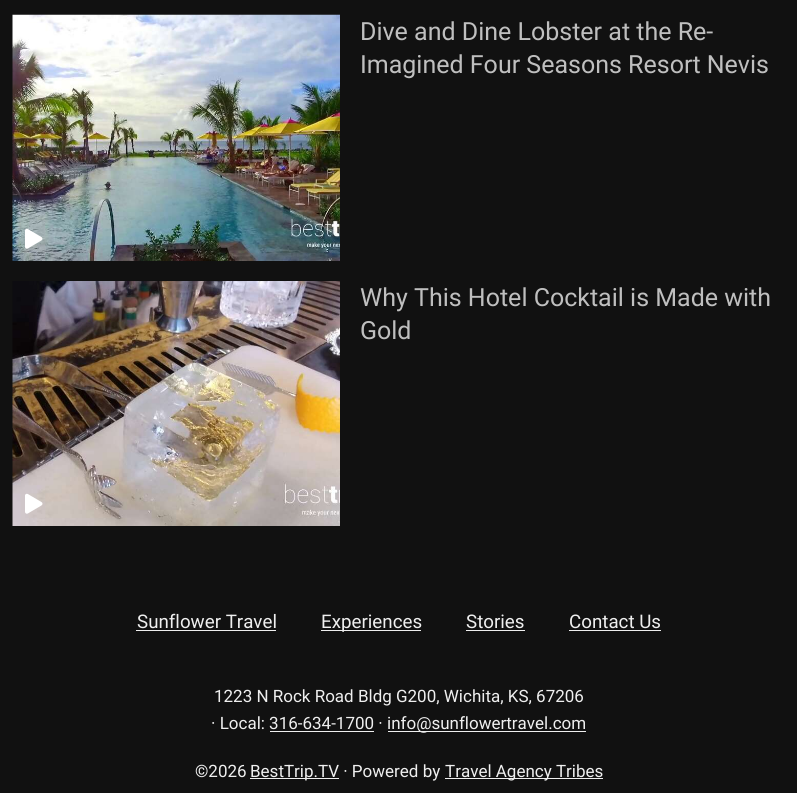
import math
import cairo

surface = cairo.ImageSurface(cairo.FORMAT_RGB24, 797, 793)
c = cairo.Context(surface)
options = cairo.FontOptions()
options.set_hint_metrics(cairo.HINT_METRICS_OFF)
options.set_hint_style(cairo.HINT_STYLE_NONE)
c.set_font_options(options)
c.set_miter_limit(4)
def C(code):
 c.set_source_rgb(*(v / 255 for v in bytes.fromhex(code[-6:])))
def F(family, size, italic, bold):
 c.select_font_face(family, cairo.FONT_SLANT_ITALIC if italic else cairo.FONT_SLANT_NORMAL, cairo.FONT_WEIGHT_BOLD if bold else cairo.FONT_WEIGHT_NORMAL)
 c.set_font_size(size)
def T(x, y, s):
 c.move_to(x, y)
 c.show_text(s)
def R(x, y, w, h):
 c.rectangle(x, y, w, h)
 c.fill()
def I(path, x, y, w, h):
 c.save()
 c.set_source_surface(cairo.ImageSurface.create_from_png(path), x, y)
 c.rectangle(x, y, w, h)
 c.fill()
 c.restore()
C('111111')
c.paint()
I('1.png',12,14,328,247)
I('2.png',25,228,18,21)
F('Roboto',25,0,0)
C('bfbfbf')
T(360,40,'Dive and Dine Lobster at the Re-')
T(360,73,'Imagined Four Seasons Resort Nevis')
I('3.png',12,281,328,245)
I('4.png',25,493,18,21)
T(360,306,'Why This Hotel Cocktail is Made with')
T(360,339,'Gold')
F('Roboto',18.75,0,0)
C('efefef')
T(137,628,'Sunflower Travel')
R(136,630,140,1)
R(321,630,100,1)
T(321,628,'Experiences')
T(466,628,'Stories')
R(466,630,59,1)
T(569,628,'Contact Us')
R(569,630,92,1)
F('Roboto',17,0,0)
T(214,702,'1223 N Rock Road Bldg G200, Wichita, KS, 67206')
T(211,729,'· Local: 316-634-1700 ·')
R(388,731,198,1)
T(387,729,'info@sunflowertravel.com')
R(270,731,104,1)
T(195,777,'©2026')
R(250,778,89,1)
T(250,777,'BestTrip.TV · Powered by')
R(445,778,158,1)
T(445,777,'Travel Agency Tribes')
surface.write_to_png('o.png')
